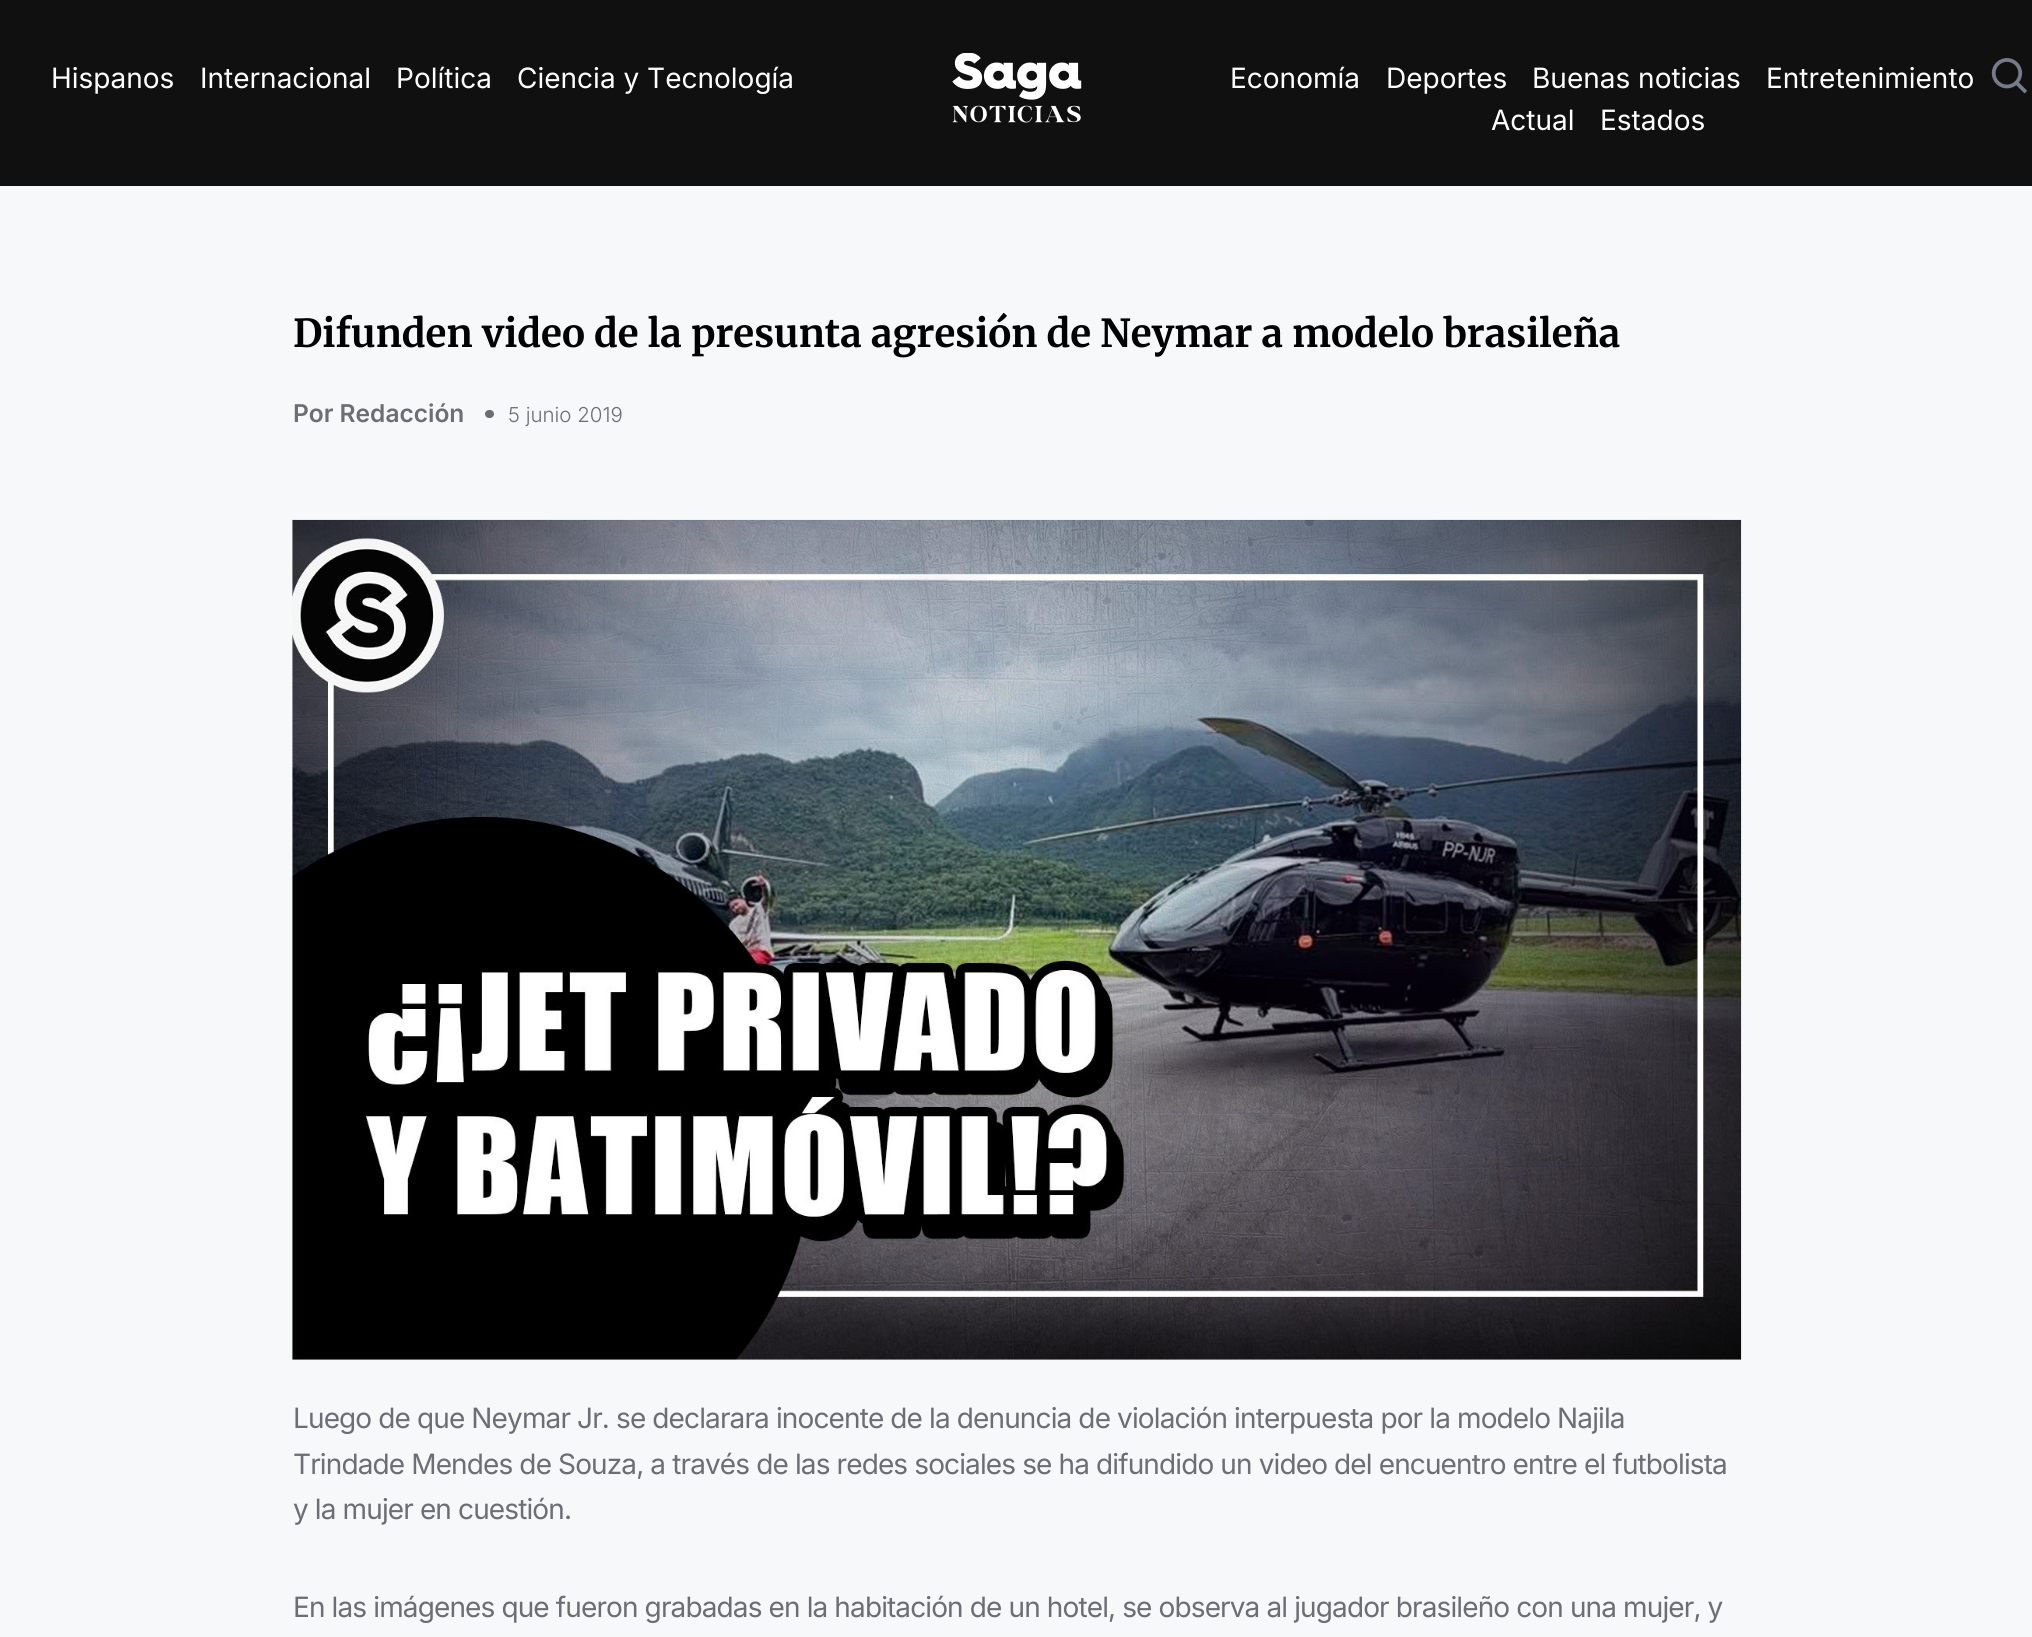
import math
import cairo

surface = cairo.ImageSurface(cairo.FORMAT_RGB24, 2032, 1637)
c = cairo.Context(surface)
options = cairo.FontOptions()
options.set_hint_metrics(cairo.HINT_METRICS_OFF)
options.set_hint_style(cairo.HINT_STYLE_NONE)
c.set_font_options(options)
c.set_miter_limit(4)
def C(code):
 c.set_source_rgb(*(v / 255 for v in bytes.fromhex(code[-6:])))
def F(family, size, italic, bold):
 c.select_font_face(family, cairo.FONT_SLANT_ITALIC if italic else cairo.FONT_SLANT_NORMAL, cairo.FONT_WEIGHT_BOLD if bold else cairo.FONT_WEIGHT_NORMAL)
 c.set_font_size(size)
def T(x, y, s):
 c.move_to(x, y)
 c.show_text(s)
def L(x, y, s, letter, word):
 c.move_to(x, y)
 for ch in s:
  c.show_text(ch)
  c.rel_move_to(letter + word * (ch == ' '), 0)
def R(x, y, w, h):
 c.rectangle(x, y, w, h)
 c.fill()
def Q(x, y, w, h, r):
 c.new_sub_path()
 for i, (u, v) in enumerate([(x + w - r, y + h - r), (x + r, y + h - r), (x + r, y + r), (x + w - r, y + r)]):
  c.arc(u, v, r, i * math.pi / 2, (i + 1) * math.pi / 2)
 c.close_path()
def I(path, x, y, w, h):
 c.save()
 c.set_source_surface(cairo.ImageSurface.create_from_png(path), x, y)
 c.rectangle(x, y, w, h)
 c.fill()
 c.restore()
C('f6f8f9')
c.paint()
C('101010')
R(0,0,2032,186)
F('Inter',28,0,0)
C('ffffff')
T(51,88,'Hispanos')
T(200,88,'Internacional')
T(396,88,'Política')
T(517,88,'Ciencia y Tecnología')
I('1.png',952,53,130,70)
T(1230,88,'Economía')
T(1386,88,'Deportes')
T(1532,88,'Buenas noticias')
T(1766,88,'Entretenimiento')
T(1491,130,'Actual')
T(1600,130,'Estados')
I('2.png',1991,58,37,36)
F('Merriweather',38.5,0,1)
C('000000')
T(293,347,'Difunden video de la presunta agresión de Neymar a modelo brasileña')
F('Inter SemiBold',24.5,0,0)
C('6c6e75')
T(293,422,'Por Redacción')
Q(485,410,9,8,4)
c.fill()
F('Inter Light',20.5,0,0)
T(508,422,'5 junio 2019')
I('3.png',292,519,1450,841)
F('Inter',28,0,0)
L(293,1428,'Luego de que Neymar Jr. se declarara inocente de la denuncia de violación interpuesta por la modelo Najila',-.88,0)
L(293,1474,'Trindade Mendes de Souza, a través de las redes sociales se ha difundido un video del encuentro entre el futbolista',-.88,0)
L(293,1519,'y la mujer en cuestión.',-.88,0)
L(293,1617,'En las imágenes que fueron grabadas en la habitación de un hotel, se observa al jugador brasileño con una mujer, y',-.88,0)
surface.write_to_png('o.png')
